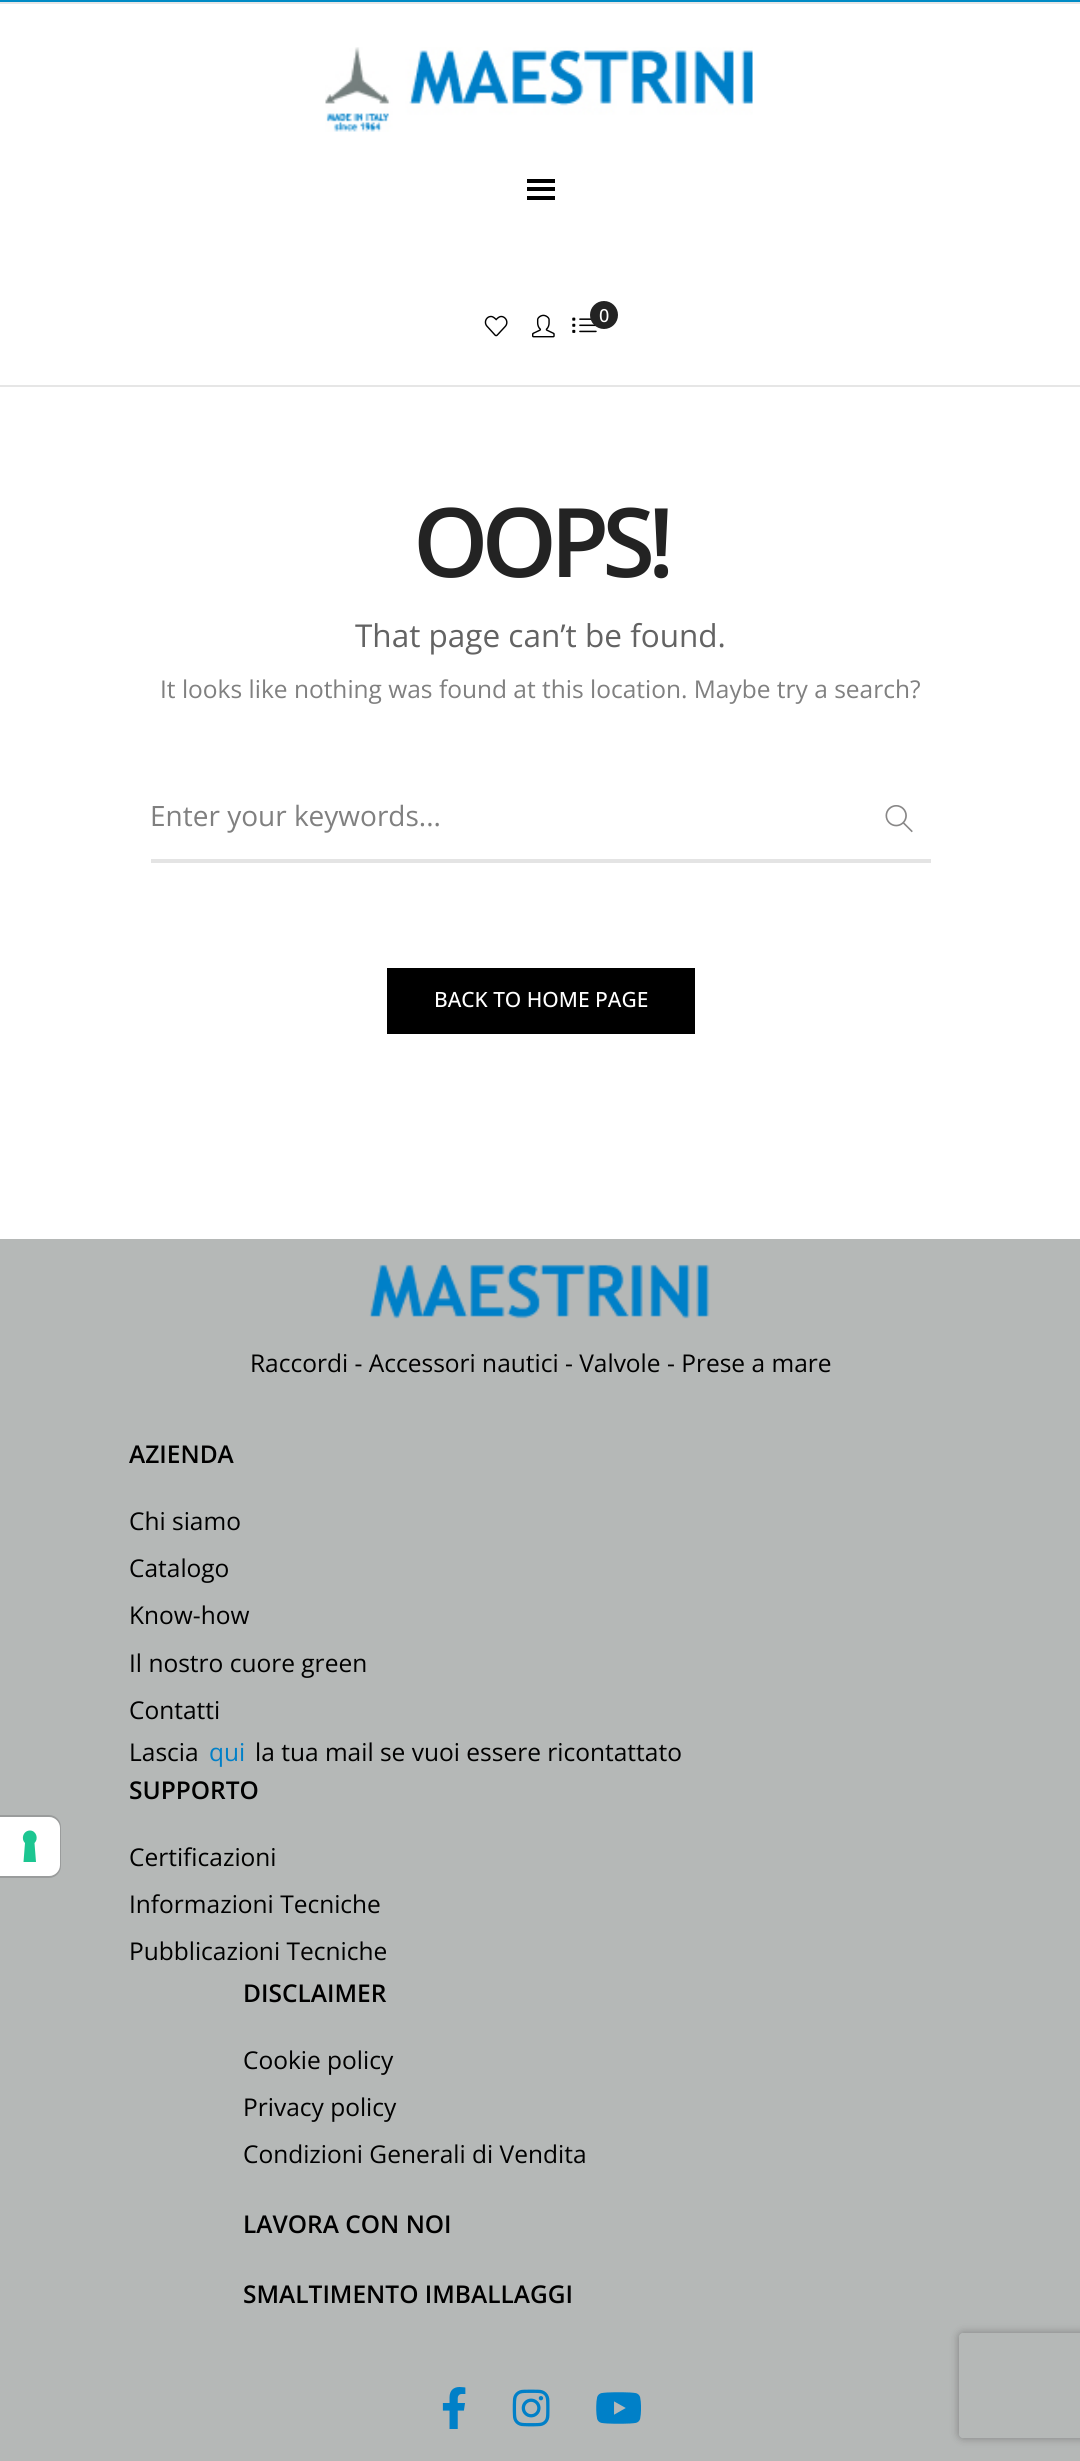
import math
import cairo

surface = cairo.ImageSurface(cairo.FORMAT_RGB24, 1080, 2461)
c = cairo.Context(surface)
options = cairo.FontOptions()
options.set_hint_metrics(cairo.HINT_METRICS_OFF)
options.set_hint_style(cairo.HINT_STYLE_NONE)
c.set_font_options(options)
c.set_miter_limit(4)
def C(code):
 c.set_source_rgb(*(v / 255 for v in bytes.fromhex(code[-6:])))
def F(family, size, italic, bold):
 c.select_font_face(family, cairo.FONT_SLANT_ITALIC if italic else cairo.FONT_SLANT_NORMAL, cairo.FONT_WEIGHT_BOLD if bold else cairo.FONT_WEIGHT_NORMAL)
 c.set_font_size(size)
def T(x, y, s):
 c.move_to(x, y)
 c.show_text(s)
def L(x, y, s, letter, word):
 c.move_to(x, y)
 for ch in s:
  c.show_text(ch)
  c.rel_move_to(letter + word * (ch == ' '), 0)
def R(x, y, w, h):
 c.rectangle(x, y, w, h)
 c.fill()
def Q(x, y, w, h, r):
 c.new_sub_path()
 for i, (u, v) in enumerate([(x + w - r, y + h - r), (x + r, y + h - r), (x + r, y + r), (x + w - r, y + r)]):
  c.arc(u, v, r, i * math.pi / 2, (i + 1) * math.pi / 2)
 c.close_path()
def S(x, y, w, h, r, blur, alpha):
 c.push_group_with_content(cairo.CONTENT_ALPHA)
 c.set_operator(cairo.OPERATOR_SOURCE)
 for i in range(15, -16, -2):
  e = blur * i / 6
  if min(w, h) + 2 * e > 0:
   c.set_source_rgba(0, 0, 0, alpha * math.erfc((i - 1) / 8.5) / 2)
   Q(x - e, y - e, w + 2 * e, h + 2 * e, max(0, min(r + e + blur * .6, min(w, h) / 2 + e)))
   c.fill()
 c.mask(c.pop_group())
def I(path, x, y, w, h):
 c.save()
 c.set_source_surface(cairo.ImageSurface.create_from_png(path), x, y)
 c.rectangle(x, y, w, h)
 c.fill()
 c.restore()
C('ffffff')
c.paint()
C('b5b8b7')
R(0,1239,1080,1222)
c.new_path()
c.move_to(-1,1816)
c.line_to(49,1816)
c.curve_to(55,1816,60,1821,60,1827)
c.line_to(60,1866)
c.curve_to(60,1872,55,1877,49,1877)
c.line_to(-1,1877)
c.close_path()
C('9a9c9c')
c.stroke()
C('ffffff')
c.new_path()
c.move_to(0,1817)
c.line_to(49,1817)
c.curve_to(55,1817,60,1822,60,1828)
c.line_to(60,1865)
c.curve_to(60,1871,55,1876,49,1876)
c.line_to(0,1876)
c.close_path()
c.fill()
C('1cc691')
c.set_fill_rule(cairo.FILL_RULE_EVEN_ODD)
c.new_path()
c.move_to(30,1830.5)
c.curve_to(36,1830.5,39,1838.5,34.5,1843)
c.line_to(36,1862)
c.line_to(23.5,1862)
c.line_to(25,1843)
c.curve_to(20.5,1838.5,23.5,1830.5,30,1830.5)
c.close_path()
c.fill()
C('e6e6e6')
R(0,2,1080,2)
C('008bc5')
R(0,0,1080,2)
C('e6e6e6')
c.set_fill_rule(cairo.FILL_RULE_WINDING)
c.new_path()
c.move_to(0,385)
c.line_to(0,387)
c.line_to(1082,387)
c.line_to(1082,4)
c.line_to(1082,385)
c.close_path()
c.fill()
I('1.png',325,47,428,85)
C('000000')
R(527,179,28,4)
R(527,187,28,4)
R(527,196,28,4)
I('2.png',484,315,24,22)
I('3.png',532,314,23,24)
I('4.png',572,317,25,16)
C('232323')
c.arc(604,315,14,0,2 * math.pi)
c.fill()
F('Open Sans Medium',18,0,0)
C('ffffff')
T(599,322,'0')
F('Open Sans SemiBold',96,0,0)
C('232323')
L(413,577,'OOPS!',-7,0)
F('Open Sans',31.5,0,0)
C('636363')
T(355,647,'That page can’t be found.')
F('Open Sans',24.5,0,0)
C('808080')
T(160,698,'It looks like nothing was found at this location. Maybe try a search?')
C('e4e4e4')
R(151,859,780,4)
F('Open Sans',28,0,0)
C('808080')
T(150,826,'Enter your keywords...')
I('5.png',885,805,28,28)
C('000000')
R(387,968,308,66)
F('Open Sans Medium',21,0,0)
C('ffffff')
T(434,1007,'BACK TO HOME PAGE')
I('6.png',369,1264,341,55)
F('Open Sans',24.5,0,0)
C('000000')
T(250,1372,'Raccordi - Accessori nautici - Valvole - Prese a mare')
F('Open Sans SemiBold',24.5,0,0)
T(129,1463,'AZIENDA')
F('Open Sans',24.5,0,0)
T(129,1530,'Chi siamo')
T(129,1577,'Catalogo')
T(129,1624,'Know-how')
T(129,1672,'Il nostro cuore green')
T(129,1719,'Contatti')
T(129,1761,'Lascia')
C('0080c8')
T(209,1761,'qui')
C('000000')
T(255,1761,'la tua mail se vuoi essere ricontattato')
F('Open Sans SemiBold',24.5,0,0)
T(129,1799,'SUPPORTO')
F('Open Sans',24.5,0,0)
T(129,1866,'Certificazioni')
T(129,1913,'Informazioni Tecniche')
T(129,1960,'Pubblicazioni Tecniche')
F('Open Sans SemiBold',24.5,0,0)
T(243,2002,'DISCLAIMER')
F('Open Sans',24.5,0,0)
T(243,2069,'Cookie policy')
T(243,2116,'Privacy policy')
T(243,2163,'Condizioni Generali di Vendita')
F('Open Sans SemiBold',24.5,0,0)
T(243,2233,'LAVORA CON NOI')
T(243,2303,'SMALTIMENTO IMBALLAGGI')
I('7.png',442,2387,24,42)
I('8.png',512,2389,38,38)
I('9.png',596,2392,45,32)
c.save()
c.set_fill_rule(cairo.FILL_RULE_EVEN_ODD)
c.new_path()
c.move_to(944,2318)
c.line_to(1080,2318)
c.line_to(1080,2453)
c.line_to(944,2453)
c.close_path()
c.move_to(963,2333)
c.line_to(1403,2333)
c.curve_to(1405,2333,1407,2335,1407,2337)
c.line_to(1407,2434)
c.curve_to(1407,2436,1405,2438,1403,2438)
c.line_to(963,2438)
c.curve_to(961,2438,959,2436,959,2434)
c.line_to(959,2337)
c.curve_to(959,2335,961,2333,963,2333)
c.close_path()
c.clip()
C('808080')
S(959,2333,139,105,4,4.5,1)
c.restore()
surface.write_to_png('o.png')
